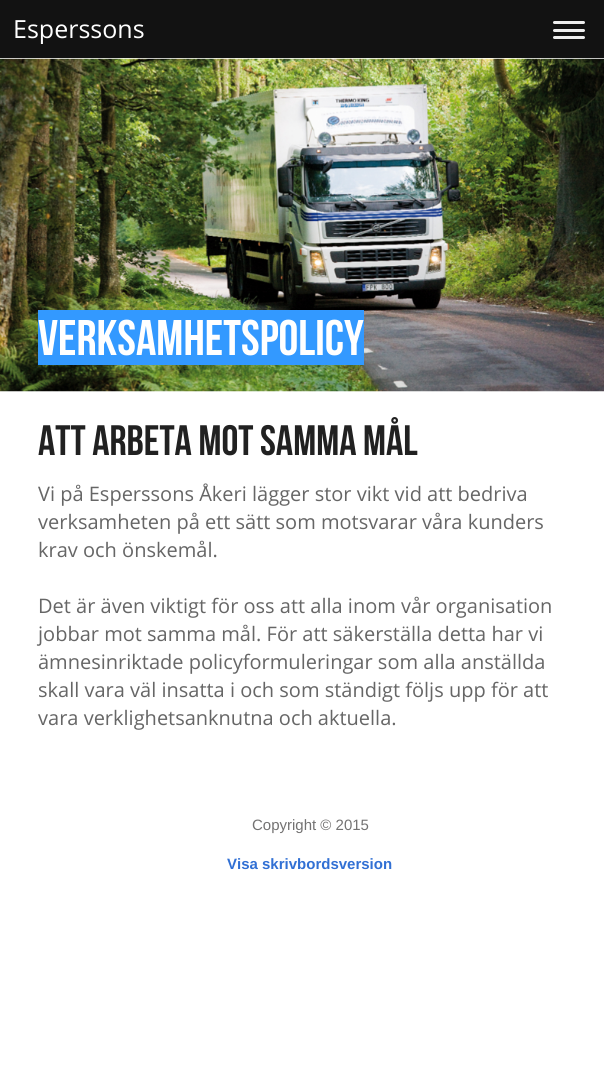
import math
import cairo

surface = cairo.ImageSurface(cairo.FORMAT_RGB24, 604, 1082)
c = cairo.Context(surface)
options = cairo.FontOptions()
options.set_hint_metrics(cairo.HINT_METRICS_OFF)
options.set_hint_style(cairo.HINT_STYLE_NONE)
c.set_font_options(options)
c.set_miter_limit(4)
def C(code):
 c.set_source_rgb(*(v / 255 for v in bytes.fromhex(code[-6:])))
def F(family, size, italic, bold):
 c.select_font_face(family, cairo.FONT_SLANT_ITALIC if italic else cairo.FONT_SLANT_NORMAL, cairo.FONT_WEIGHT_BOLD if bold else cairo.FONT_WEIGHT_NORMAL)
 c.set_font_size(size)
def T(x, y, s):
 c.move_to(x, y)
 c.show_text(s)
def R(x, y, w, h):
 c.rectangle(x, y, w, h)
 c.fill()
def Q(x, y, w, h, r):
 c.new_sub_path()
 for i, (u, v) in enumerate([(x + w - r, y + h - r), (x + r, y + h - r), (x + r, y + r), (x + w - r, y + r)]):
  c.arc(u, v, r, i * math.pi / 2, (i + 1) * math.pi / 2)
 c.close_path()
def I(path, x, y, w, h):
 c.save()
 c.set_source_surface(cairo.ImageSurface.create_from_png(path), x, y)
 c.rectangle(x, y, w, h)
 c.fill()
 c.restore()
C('ffffff')
c.paint()
C('121212')
R(0,0,604,58)
F('Open Sans',25,0,0)
C('ffffff')
T(13,38,'Esperssons')
C('eeeeee')
Q(553,21,32,3,1.5)
c.fill()
Q(553,29,32,3,1.5)
c.fill()
Q(553,36,32,3,1.5)
c.fill()
I('1.png',0,58,604,334)
C('3399ff')
R(38,310,326,55)
F('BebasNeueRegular',50,0,0)
C('ffffff')
T(38,355,'VERKSAMHETSPOLICY')
F('BebasNeueRegular',42.5,0,0)
C('212121')
T(38,455,'Att arbeta mot samma mål')
F('Open Sans',20,0,0)
C('666666')
T(38,501,'Vi på Esperssons Åkeri lägger stor vikt vid att bedriva')
T(38,529,'verksamheten på ett sätt som motsvarar våra kunders')
T(38,557,'krav och önskemål.')
T(38,613,'Det är även viktigt för oss att alla inom vår organisation')
T(38,641,'jobbar mot samma mål. För att säkerställa detta har vi')
T(38,669,'ämnesinriktade policyformuleringar som alla anställda')
T(38,697,'skall vara väl insatta i och som ständigt följs upp för att')
T(38,725,'vara verklighetsanknutna och aktuella.')
F('Liberation Sans',15,0,0)
C('737272')
T(252,830,'Copyright © 2015')
F('Liberation Sans',15,0,1)
C('3170d4')
T(227,869,'Visa skrivbordsversion')
surface.write_to_png('o.png')
